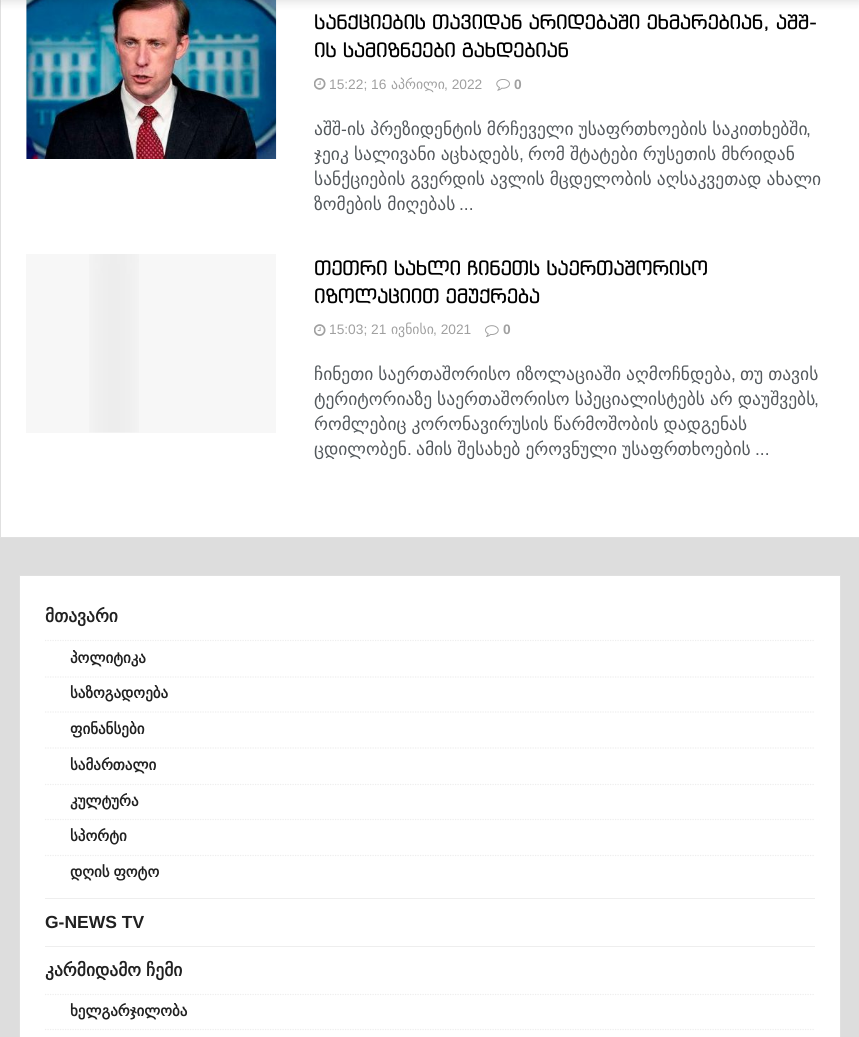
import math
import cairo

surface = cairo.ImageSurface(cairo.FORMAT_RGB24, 859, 1037)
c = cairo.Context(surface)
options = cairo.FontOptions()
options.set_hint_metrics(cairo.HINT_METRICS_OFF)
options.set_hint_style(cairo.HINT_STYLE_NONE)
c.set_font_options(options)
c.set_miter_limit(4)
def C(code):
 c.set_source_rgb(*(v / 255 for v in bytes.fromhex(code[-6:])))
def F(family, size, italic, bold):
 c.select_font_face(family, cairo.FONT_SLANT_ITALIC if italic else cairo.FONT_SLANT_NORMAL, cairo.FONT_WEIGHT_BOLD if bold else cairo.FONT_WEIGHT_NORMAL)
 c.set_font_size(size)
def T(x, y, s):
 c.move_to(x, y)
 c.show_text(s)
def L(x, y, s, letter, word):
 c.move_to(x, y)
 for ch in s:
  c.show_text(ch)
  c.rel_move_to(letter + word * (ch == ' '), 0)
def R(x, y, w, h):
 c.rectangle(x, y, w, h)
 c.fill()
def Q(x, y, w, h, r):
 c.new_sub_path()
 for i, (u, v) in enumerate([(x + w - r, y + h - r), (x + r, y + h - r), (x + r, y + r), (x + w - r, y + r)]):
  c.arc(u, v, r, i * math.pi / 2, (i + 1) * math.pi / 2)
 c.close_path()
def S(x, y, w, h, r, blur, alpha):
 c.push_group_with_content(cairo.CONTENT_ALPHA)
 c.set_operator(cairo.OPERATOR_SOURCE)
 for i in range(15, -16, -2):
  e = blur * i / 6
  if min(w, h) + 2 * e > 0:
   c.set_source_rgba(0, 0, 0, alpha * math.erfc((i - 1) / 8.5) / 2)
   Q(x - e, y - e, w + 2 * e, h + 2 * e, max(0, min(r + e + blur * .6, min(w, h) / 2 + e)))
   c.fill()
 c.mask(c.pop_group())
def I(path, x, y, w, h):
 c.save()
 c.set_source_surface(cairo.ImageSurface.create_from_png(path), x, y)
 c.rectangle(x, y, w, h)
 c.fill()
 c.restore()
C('dddddd')
c.paint()
C('ffffff')
c.rectangle(.5,-.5,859,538)
c.fill_preserve()
C('e0e0e0')
c.set_line_width(1)
c.stroke()
C('f7f7f7')
R(26,0,1,159)
I('1.png',26,0,251,159)
C('000000')
S(0,-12,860,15,0,4,.1)
F('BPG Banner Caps',20,0,0)
C('000000')
L(314,29,'სანქციების თავიდან არიდებაში ეხმარებიან, აშშ-',-.4,0)
L(314,57,'ის სამიზნეები გახდებიან',-.4,0)
I('2.png',314,78,12,12)
F('Liberation Sans',13.75,0,0)
C('a0a0a0')
T(329,89,'15:22; 16')
F('DejaVu Sans',13.75,0,0)
T(391,89,'აპრილი')
F('Liberation Sans',13.75,0,0)
T(444,89,', 2022')
I('3.png',496,79,14,12)
F('Liberation Sans',13.75,0,1)
T(514,89,'0')
F('DejaVu Sans',17.5,0,0)
C('53585c')
T(314,135,'აშშ')
F('Liberation Sans',17.5,0,0)
T(341,135,'-')
F('DejaVu Sans',17.5,0,0)
L(347,135,'ის პრეზიდენტის მრჩეველი უსაფრთხოების საკითხებში',0,-.5)
F('Liberation Sans',17.5,0,0)
T(806,135,',')
F('DejaVu Sans',17.5,0,0)
L(314,160,'ჯეიკ სალივანი აცხადებს',0,-.5)
F('Liberation Sans',17.5,0,0)
T(519,160,',')
F('DejaVu Sans',17.5,0,0)
L(528,160,'რომ შტატები რუსეთის მხრიდან',0,-.5)
L(314,185,'სანქციების გვერდის ავლის მცდელობის აღსაკვეთად ახალი',0,-.5)
T(314,210,'ზომების მიღებას')
F('Liberation Sans',17.5,0,0)
T(459,210,'...')
C('f7f7f7')
R(26,254,250,179)
I('4.png',89,254,50,179)
F('BPG Banner Caps',20,0,0)
C('000000')
L(314,275,'თეთრი სახლი ჩინეთს საერთაშორისო',-.4,0)
L(314,303,'იზოლაციით ემუქრება',-.4,0)
I('5.png',314,324,12,12)
F('Liberation Sans',13.75,0,0)
C('a0a0a0')
T(329,334,'15:03; 21')
F('DejaVu Sans',13.75,0,0)
T(391,334,'ივნისი')
F('Liberation Sans',13.75,0,0)
T(433,334,', 2021')
I('6.png',485,325,14,12)
F('Liberation Sans',13.75,0,1)
T(503,334,'0')
F('DejaVu Sans',17.5,0,0)
C('53585c')
L(314,380,'ჩინეთი საერთაშორისო იზოლაციაში აღმოჩნდება',0,-.5)
F('Liberation Sans',17.5,0,0)
T(731,380,',')
F('DejaVu Sans',17.5,0,0)
L(740,380,'თუ თავის',0,-.5)
L(314,405,'ტერიტორიაზე საერთაშორისო სპეციალისტებს არ დაუშვებს',0,-.5)
F('Liberation Sans',17.5,0,0)
T(814,405,',')
F('DejaVu Sans',17.5,0,0)
L(314,430,'რომლებიც კორონავირუსის წარმოშობის დადგენას',0,-.5)
T(314,455,'ცდილობენ')
F('Liberation Sans',17.5,0,0)
T(407,455,'.')
F('DejaVu Sans',17.5,0,0)
L(416,455,'ამის შესახებ ეროვნული უსაფრთხოების',0,-.5)
F('Liberation Sans',17.5,0,0)
T(755,455,'...')
C('ffffff')
c.rectangle(19.5,575.5,821,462)
c.fill_preserve()
C('e0e0e0')
c.stroke()
F('DejaVu Sans',17.5,0,1)
C('212121')
T(45,622,'მთავარი')
c.new_path()
c.move_to(45,640.5)
c.line_to(815,640.5)
C('eeeeee')
c.set_line_width(1.2)
c.set_dash([1.25,1.25])
c.stroke()
F('DejaVu Sans',15,0,1)
C('212121')
T(70,663,'პოლიტიკა')
c.new_path()
c.move_to(45,677)
c.line_to(815,677)
C('eeeeee')
c.stroke()
C('212121')
T(70,698,'საზოგადოება')
c.new_path()
c.move_to(45,712)
c.line_to(815,712)
C('eeeeee')
c.stroke()
C('212121')
T(70,734,'ფინანსები')
c.new_path()
c.move_to(45,748)
c.line_to(815,748)
C('eeeeee')
c.stroke()
C('212121')
T(70,770,'სამართალი')
c.new_path()
c.move_to(45,784.5)
c.line_to(815,784.5)
C('eeeeee')
c.stroke()
C('212121')
T(70,806,'კულტურა')
c.new_path()
c.move_to(45,819.5)
c.line_to(815,819.5)
C('eeeeee')
c.stroke()
C('212121')
T(70,841,'სპორტი')
c.new_path()
c.move_to(45,855.5)
c.line_to(815,855.5)
C('eeeeee')
c.stroke()
C('212121')
L(70,877,'დღის ფოტო',0,-1)
C('eeeeee')
R(45,898,770,1)
F('Liberation Sans',17.5,0,1)
C('212121')
T(45,928,'G-NEWS TV')
C('eeeeee')
R(45,946,770,1)
F('DejaVu Sans',17.5,0,1)
C('212121')
L(45,976,'კარმიდამო ჩემი',0,-.5)
c.new_path()
c.move_to(45,994.5)
c.line_to(815,994.5)
C('eeeeee')
c.stroke()
F('DejaVu Sans',15,0,1)
C('212121')
T(70,1016,'ხელგარჯილობა')
c.new_path()
c.move_to(45,1029.5)
c.line_to(815,1029.5)
C('eeeeee')
c.stroke()
surface.write_to_png('o.png')
